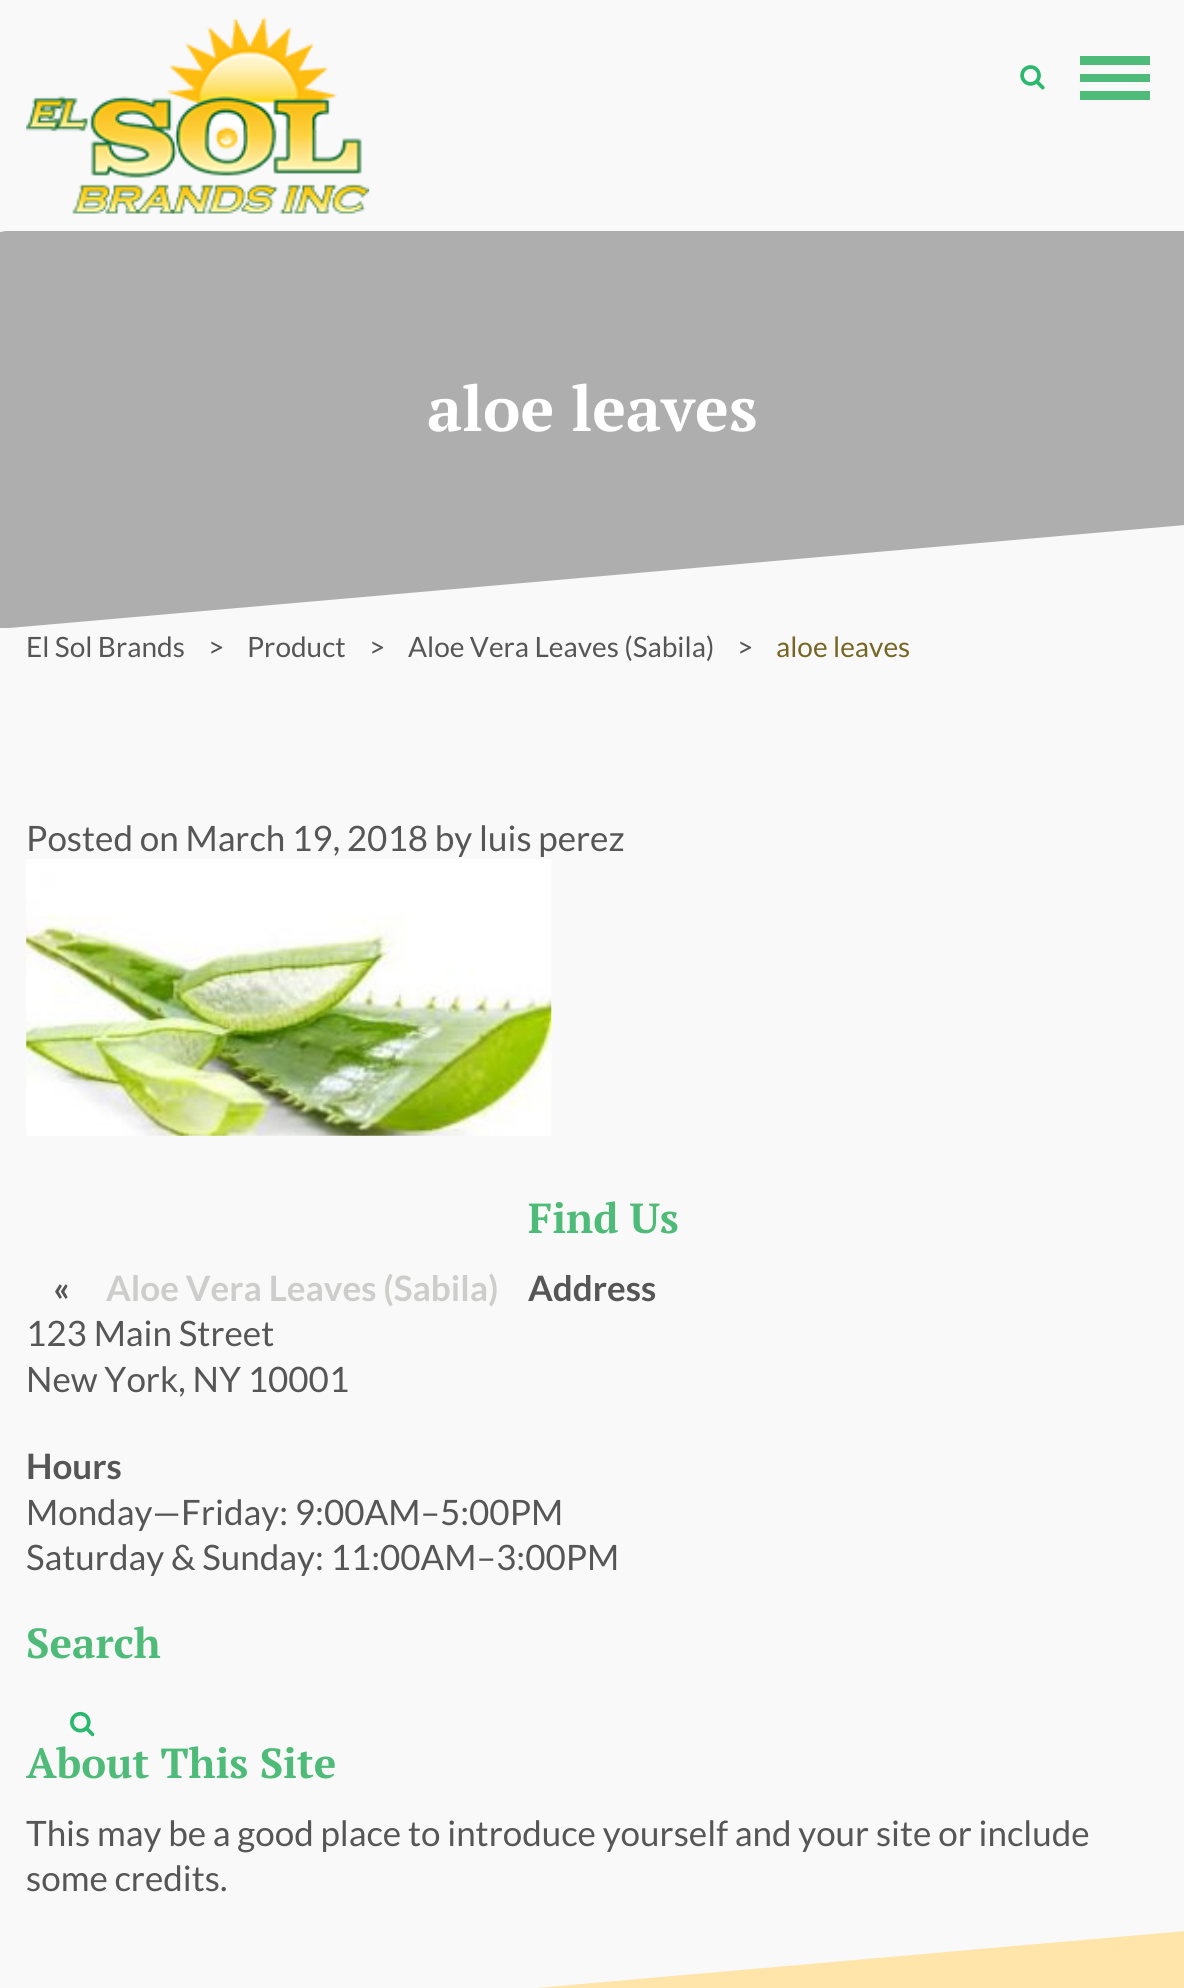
import math
import cairo

surface = cairo.ImageSurface(cairo.FORMAT_RGB24, 1184, 1988)
c = cairo.Context(surface)
options = cairo.FontOptions()
options.set_hint_metrics(cairo.HINT_METRICS_OFF)
options.set_hint_style(cairo.HINT_STYLE_NONE)
c.set_font_options(options)
c.set_miter_limit(4)
def C(code):
 c.set_source_rgb(*(v / 255 for v in bytes.fromhex(code[-6:])))
def F(family, size, italic, bold):
 c.select_font_face(family, cairo.FONT_SLANT_ITALIC if italic else cairo.FONT_SLANT_NORMAL, cairo.FONT_WEIGHT_BOLD if bold else cairo.FONT_WEIGHT_NORMAL)
 c.set_font_size(size)
def T(x, y, s):
 c.move_to(x, y)
 c.show_text(s)
def R(x, y, w, h):
 c.rectangle(x, y, w, h)
 c.fill()
def I(path, x, y, w, h):
 c.save()
 c.set_source_surface(cairo.ImageSurface.create_from_png(path), x, y)
 c.rectangle(x, y, w, h)
 c.fill()
 c.restore()
C('f9f9f9')
c.paint()
I('1.png',26,17,344,197)
I('2.png',1020,65,25,25)
C('4ebb78')
R(1080,74,70,8)
R(1080,56,70,9)
R(1080,91,70,9)
C('aeaeae')
c.new_path()
c.move_to(0,232)
c.line_to(0,628)
c.line_to(9,628)
c.line_to(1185,525)
c.line_to(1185,231)
c.line_to(6,231)
c.close_path()
c.fill()
F('PT Serif',63,0,1)
C('ffffff')
T(427,431,'aloe leaves')
F('Lato',28,0,0)
C('565656')
T(26,657,'El Sol Brands')
T(208,657,'>')
T(247,657,'Product')
T(369,657,'>')
T(408,657,'Aloe Vera Leaves (Sabila)')
T(737,657,'>')
C('776623')
T(776,657,'aloe leaves')
F('Lato',35,0,0)
C('565656')
T(26,851,'Posted on March 19, 2018 by luis perez')
I('3.png',26,859,526,277)
F('Lato',35,0,1)
T(53,1301,'«')
C('cdcdcb')
T(106,1301,'Aloe Vera Leaves (Sabila)')
F('PT Serif',42,0,1)
C('4ebb78')
T(528,1233,'Find Us')
F('Lato',35,0,1)
C('565656')
T(528,1301,'Address')
F('Lato',35,0,0)
T(26,1346,'123 Main Street')
T(26,1392,'New York, NY 10001')
F('Lato',35,0,1)
T(26,1479,'Hours')
F('Lato',35,0,0)
T(26,1525,'Monday—Friday: 9:00AM–5:00PM')
T(26,1570,'Saturday & Sunday: 11:00AM–3:00PM')
F('PT Serif',42,0,1)
C('4ebb78')
T(26,1658,'Search')
I('4.png',70,1711,25,26)
T(26,1778,'About This Site')
F('Lato',35,0,0)
C('565656')
T(26,1846,'This may be a good place to introduce yourself and your site or include')
T(26,1891,'some credits.')
C('ffe5a9')
c.new_path()
c.move_to(0,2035)
c.line_to(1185,1931)
c.line_to(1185,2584)
c.line_to(0,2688)
c.close_path()
c.fill()
surface.write_to_png('o.png')
